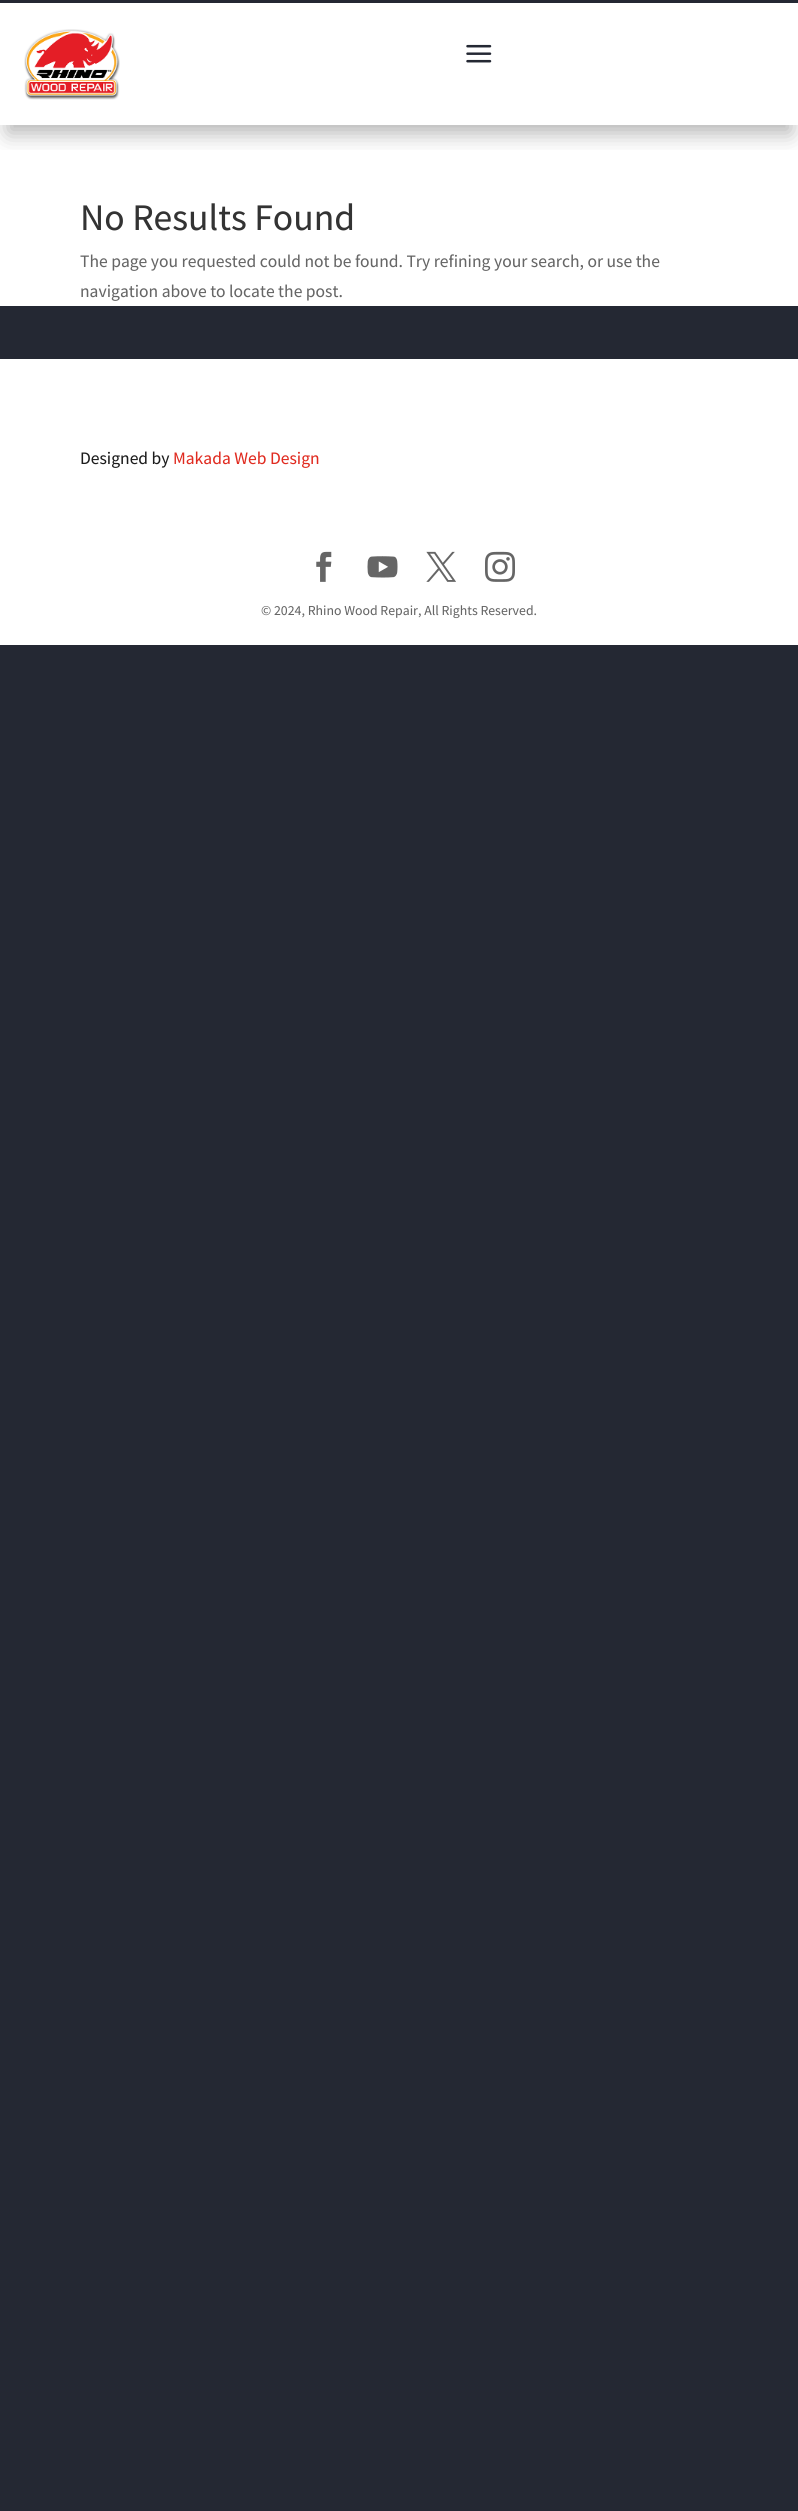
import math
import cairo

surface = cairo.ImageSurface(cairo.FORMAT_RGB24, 798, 2511)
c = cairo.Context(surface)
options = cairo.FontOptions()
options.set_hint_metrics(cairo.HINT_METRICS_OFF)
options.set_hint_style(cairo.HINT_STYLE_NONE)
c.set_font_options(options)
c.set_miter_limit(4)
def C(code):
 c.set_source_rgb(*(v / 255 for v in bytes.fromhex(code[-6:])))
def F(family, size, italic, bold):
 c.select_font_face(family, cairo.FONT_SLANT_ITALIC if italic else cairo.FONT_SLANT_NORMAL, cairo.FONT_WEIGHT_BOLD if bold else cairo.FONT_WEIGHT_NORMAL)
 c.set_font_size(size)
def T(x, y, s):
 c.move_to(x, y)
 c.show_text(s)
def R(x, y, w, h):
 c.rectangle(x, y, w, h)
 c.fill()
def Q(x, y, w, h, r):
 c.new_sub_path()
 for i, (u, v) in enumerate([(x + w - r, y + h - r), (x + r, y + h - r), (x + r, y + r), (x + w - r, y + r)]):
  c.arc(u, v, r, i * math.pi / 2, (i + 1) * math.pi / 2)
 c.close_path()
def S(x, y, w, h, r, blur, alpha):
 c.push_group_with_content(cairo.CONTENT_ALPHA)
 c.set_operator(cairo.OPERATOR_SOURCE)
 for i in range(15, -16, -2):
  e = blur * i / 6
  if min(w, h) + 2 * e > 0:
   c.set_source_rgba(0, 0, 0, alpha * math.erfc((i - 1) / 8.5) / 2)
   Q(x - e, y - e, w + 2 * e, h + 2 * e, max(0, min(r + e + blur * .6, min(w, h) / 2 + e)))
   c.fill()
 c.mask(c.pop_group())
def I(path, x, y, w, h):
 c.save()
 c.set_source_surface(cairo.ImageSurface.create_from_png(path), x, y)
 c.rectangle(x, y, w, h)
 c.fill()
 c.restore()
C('242833')
c.paint()
C('ffffff')
R(0,3,798,303)
c.save()
c.rectangle(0,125,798,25)
c.clip()
C('000000')
S(8,25,783,108,0,11,.3)
c.restore()
I('1.png',24,29,96,71)
I('2.png',466,44,26,19)
F('Assistant Medium',37.5,0,0)
C('333333')
T(80,230,'No Results Found')
F('Assistant Medium',17.5,0,0)
C('666666')
T(80,267,'The page you requested could not be found. Try refining your search, or use the')
T(80,297,'navigation above to locate the post.')
C('ffffff')
R(0,359,798,286)
C('1c1c1c')
T(80,464,'Designed by')
C('e02b20')
T(173,464,'Makada Web Design')
I('3.png',316,551,16,31)
I('4.png',367,556,31,22)
I('5.png',426,551,30,31)
I('6.png',485,551,30,31)
F('Assistant Medium',13.75,0,0)
C('666666')
T(261,615,'© 2024, Rhino Wood Repair, All Rights Reserved.')
surface.write_to_png('o.png')
